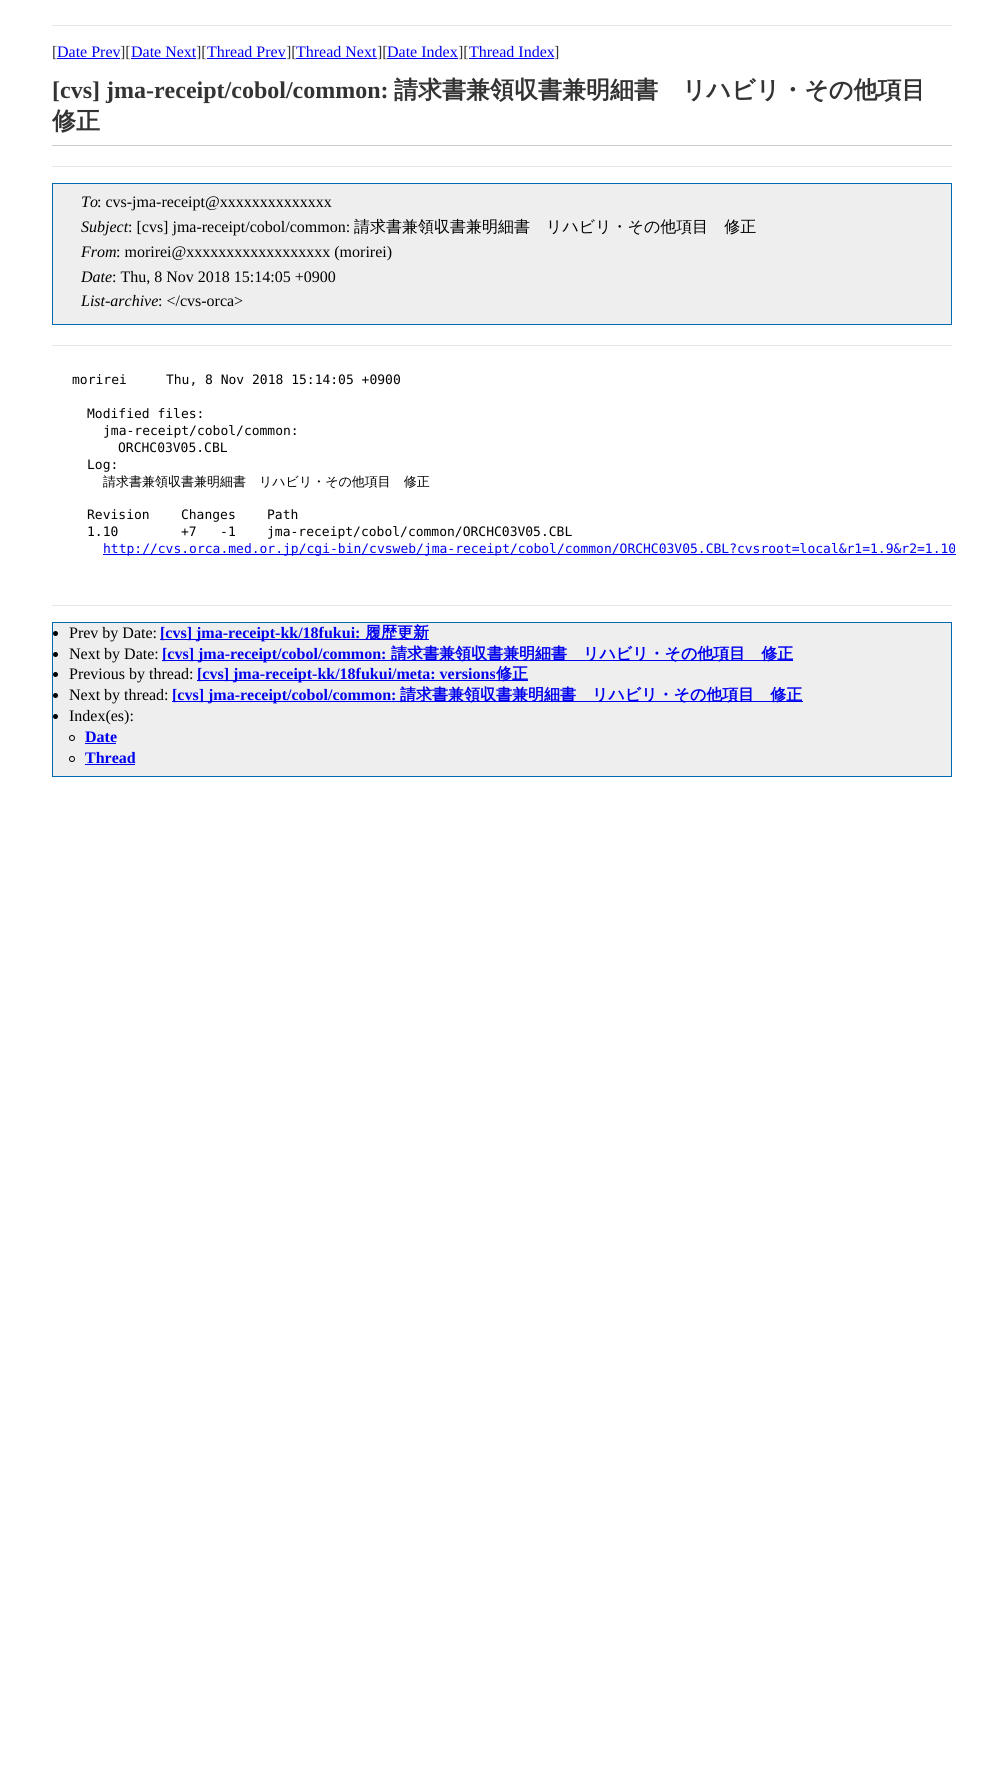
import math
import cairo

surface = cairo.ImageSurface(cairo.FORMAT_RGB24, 1003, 1769)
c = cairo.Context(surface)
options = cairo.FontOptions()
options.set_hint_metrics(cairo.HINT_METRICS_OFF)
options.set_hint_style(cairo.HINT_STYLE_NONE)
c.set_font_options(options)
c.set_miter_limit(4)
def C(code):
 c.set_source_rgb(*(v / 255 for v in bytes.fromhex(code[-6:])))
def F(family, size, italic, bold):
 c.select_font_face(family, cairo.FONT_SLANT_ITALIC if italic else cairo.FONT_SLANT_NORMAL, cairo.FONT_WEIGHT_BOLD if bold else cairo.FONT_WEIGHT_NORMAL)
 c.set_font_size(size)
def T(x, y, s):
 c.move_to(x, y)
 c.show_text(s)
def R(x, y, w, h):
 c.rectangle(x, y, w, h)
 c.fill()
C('ffffff')
c.paint()
C('e6e6e6')
R(52,25,900,1)
F('Liberation Serif',16,0,0)
C('333333')
T(52,57,'[')
C('0000ee')
T(57,57,'Date Prev')
R(57,58,63,1)
C('333333')
T(120,57,'][')
C('0000ee')
T(131,57,'Date Next')
R(131,58,65,1)
C('333333')
T(196,57,'][')
C('0000ee')
T(207,57,'Thread Prev')
R(207,58,79,1)
C('333333')
T(286,57,'][')
C('0000ee')
T(296,57,'Thread Next')
R(296,58,81,1)
C('333333')
T(377,57,'][')
C('0000ee')
T(387,57,'Date Index')
R(387,58,71,1)
C('333333')
T(458,57,'][')
C('0000ee')
T(469,57,'Thread Index')
R(469,58,85,1)
C('333333')
T(554,57,']')
C('cccccc')
R(52,145,900,1)
F('Liberation Serif',24,0,1)
C('333333')
T(52,98,'[cvs] jma-receipt/cobol/common:')
F('WenQuanYi Zen Hei',24,0,1)
T(394,98,'請求書兼領収書兼明細書　リハビリ・その他項目')
T(52,129,'修正')
C('e6e6e6')
R(52,166,900,1)
C('eeeeee')
c.rectangle(52.5,183.5,899,141)
c.fill_preserve()
C('006ab0')
c.set_line_width(1)
c.stroke()
F('Liberation Serif',16,1,0)
C('000000')
T(81,207,'To')
F('Liberation Serif',16,0,0)
T(97,207,': cvs-jma-receipt@xxxxxxxxxxxxxx')
F('Liberation Serif',16,1,0)
T(81,232,'Subject')
F('Liberation Serif',16,0,0)
T(128,232,': [cvs] jma-receipt/cobol/common:')
F('WenQuanYi Zen Hei Medium',16,0,0)
T(354,232,'請求書兼領収書兼明細書　リハビリ・その他項目　修正')
F('Liberation Serif',16,1,0)
T(81,257,'From')
F('Liberation Serif',16,0,0)
T(116,257,': morirei@xxxxxxxxxxxxxxxxxx (morirei)')
F('Liberation Serif',16,1,0)
T(81,282,'Date')
F('Liberation Serif',16,0,0)
T(112,282,': Thu, 8 Nov 2018 15:14:05 +0900')
F('Liberation Serif',16,1,0)
T(81,306,'List-archive')
F('Liberation Serif',16,0,0)
T(158,306,': </cvs-orca>')
C('e6e6e6')
R(52,345,900,1)
F('DejaVu Sans Mono',13,0,0)
C('000000')
T(72,384,'morirei     Thu, 8 Nov 2018 15:14:05 +0900')
T(87,418,'Modified files:')
T(103,435,'jma-receipt/cobol/common:')
T(118,452,'ORCHC03V05.CBL')
T(87,469,'Log:')
F('WenQuanYi Zen Hei Medium',13,0,0)
T(103,486,'請求書兼領収書兼明細書　リハビリ・その他項目　修正')
F('DejaVu Sans Mono',13,0,0)
T(87,519,'Revision    Changes    Path')
T(87,536,'1.10        +7   -1    jma-receipt/cobol/common/ORCHC03V05.CBL')
C('0000ee')
R(103,554,853,1)
T(103,553,'http://cvs.orca.med.or.jp/cgi-bin/cvsweb/jma-receipt/cobol/common/ORCHC03V05.CBL?cvsroot=local&r1=1.9&r2=1.10')
C('e6e6e6')
R(52,605,900,1)
C('eeeeee')
c.rectangle(52.5,622.5,899,154)
c.fill_preserve()
C('006ab0')
c.stroke()
C('000000')
c.arc(55.5,633.5,2.5,0,2 * math.pi)
c.fill()
F('Liberation Serif',16,0,0)
T(69,638,'Prev by Date:')
C('0000ee')
R(160,639,269,1)
F('Liberation Serif',16,0,1)
T(160,638,'[cvs] jma-receipt-kk/18fukui:')
F('WenQuanYi Zen Hei',16,0,1)
T(365,638,'履歴更新')
C('000000')
c.new_path()
c.arc(55.5,654.5,2.5,0,2 * math.pi)
c.fill()
F('Liberation Serif',16,0,0)
T(69,659,'Next by Date:')
C('0000ee')
R(162,660,631,1)
F('Liberation Serif',16,0,1)
T(162,659,'[cvs] jma-receipt/cobol/common:')
F('WenQuanYi Zen Hei',16,0,1)
T(391,659,'請求書兼領収書兼明細書　リハビリ・その他項目　修正')
C('000000')
c.new_path()
c.arc(55.5,674.5,2.5,0,2 * math.pi)
c.fill()
F('Liberation Serif',16,0,0)
T(69,679,'Previous by thread:')
C('0000ee')
R(197,680,331,1)
F('Liberation Serif',16,0,1)
T(197,679,'[cvs] jma-receipt-kk/18fukui/meta: versions')
F('WenQuanYi Zen Hei',16,0,1)
T(496,679,'修正')
C('000000')
c.new_path()
c.arc(55.5,695.5,2.5,0,2 * math.pi)
c.fill()
F('Liberation Serif',16,0,0)
T(69,700,'Next by thread:')
C('0000ee')
R(172,701,631,1)
F('Liberation Serif',16,0,1)
T(172,700,'[cvs] jma-receipt/cobol/common:')
F('WenQuanYi Zen Hei',16,0,1)
T(400,700,'請求書兼領収書兼明細書　リハビリ・その他項目　修正')
C('000000')
c.new_path()
c.arc(55.5,716.5,2.5,0,2 * math.pi)
c.fill()
F('Liberation Serif',16,0,0)
T(69,721,'Index(es):')
c.new_path()
c.arc(72,738,2.5,0,2 * math.pi)
c.stroke()
F('Liberation Serif',16,0,1)
C('0000ee')
T(85,742,'Date')
R(85,743,31,1)
c.new_path()
c.arc(72,759,2.5,0,2 * math.pi)
C('000000')
c.stroke()
C('0000ee')
T(85,763,'Thread')
R(85,764,50,1)
surface.write_to_png('o.png')
